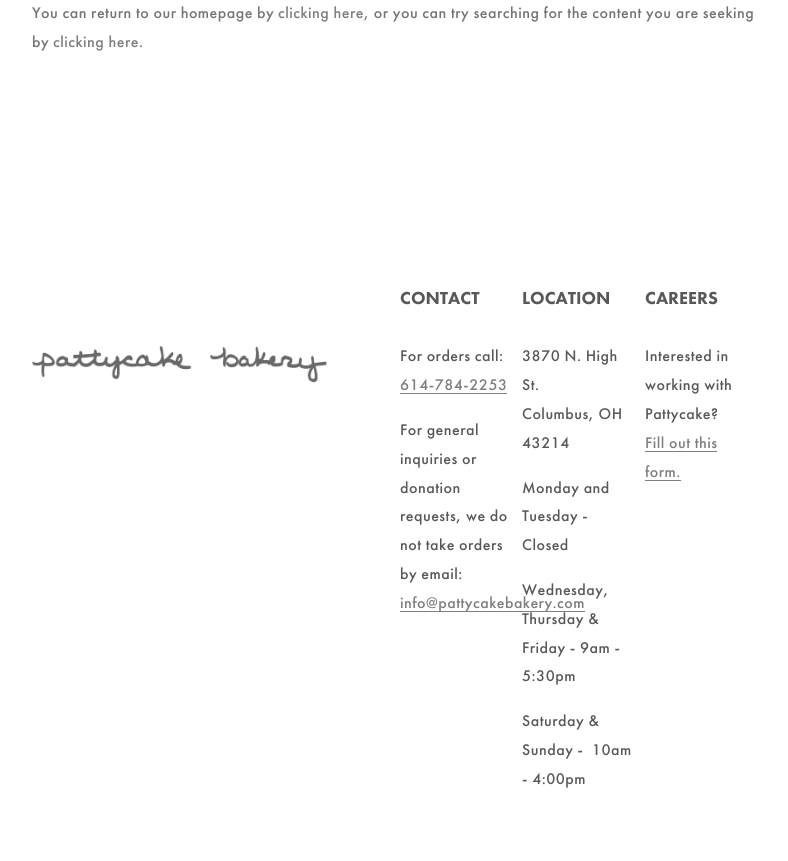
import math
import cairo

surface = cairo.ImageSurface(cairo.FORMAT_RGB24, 788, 861)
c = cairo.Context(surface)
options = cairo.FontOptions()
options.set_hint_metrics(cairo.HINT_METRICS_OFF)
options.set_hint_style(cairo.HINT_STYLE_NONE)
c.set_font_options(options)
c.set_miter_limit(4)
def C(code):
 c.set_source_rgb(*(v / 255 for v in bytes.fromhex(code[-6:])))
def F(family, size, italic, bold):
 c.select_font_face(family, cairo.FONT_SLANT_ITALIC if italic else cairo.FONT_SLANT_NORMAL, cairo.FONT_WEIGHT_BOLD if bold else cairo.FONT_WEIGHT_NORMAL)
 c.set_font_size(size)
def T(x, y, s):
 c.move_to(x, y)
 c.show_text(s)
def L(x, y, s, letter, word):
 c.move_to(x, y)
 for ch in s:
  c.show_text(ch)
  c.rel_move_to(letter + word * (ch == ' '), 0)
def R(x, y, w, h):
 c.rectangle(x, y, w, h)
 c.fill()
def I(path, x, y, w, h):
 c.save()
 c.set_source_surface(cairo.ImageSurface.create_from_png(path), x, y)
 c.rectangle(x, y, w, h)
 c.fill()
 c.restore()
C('ffffff')
c.paint()
F('Futura PT Medium',16,0,0)
C('747474')
L(32,18,'You can return to our homepage by',.48,0)
C('7e7e7e')
L(278,18,'clicking here',.48,0)
C('747474')
L(364,18,', or you can try searching for the content you are seeking',.48,0)
L(32,47,'by',.48,0)
C('7e7e7e')
L(53,47,'clicking here',.48,0)
C('747474')
L(139,47,'.',.48,0)
F('Futura PT Black',18,0,0)
C('585858')
T(400,304,'CONTACT')
F('Futura PT Medium',16,0,0)
L(400,361,'For orders call:',.48,0)
C('7e7e7e')
L(400,390,'614-784-2253',.48,0)
R(400,393,107,1)
C('585858')
L(400,435,'For general',.48,0)
L(400,464,'inquiries or',.48,0)
L(400,493,'donation',.48,0)
L(400,521,'requests, we do',.48,0)
L(400,550,'not take orders',.48,0)
L(400,579,'by email:',.48,0)
C('7e7e7e')
R(400,611,185,1)
L(400,608,'info@pattycakebakery.com',.48,0)
I('1.png',32,346,295,37)
F('Futura PT Black',18,0,0)
C('585858')
T(522,304,'LOCATION')
F('Futura PT Medium',16,0,0)
L(522,361,'3870 N. High',.48,0)
L(522,390,'St.',.48,0)
L(522,419,'Columbus, OH',.48,0)
L(522,448,'43214',.48,0)
L(522,493,'Monday and',.48,0)
L(522,521,'Tuesday -',.48,0)
L(522,550,'Closed',.48,0)
L(522,595,'Wednesday,',.48,0)
L(522,624,'Thursday &',.48,0)
L(522,653,'Friday - 9am -',.48,0)
L(522,681,'5:30pm',.48,0)
L(522,726,'Saturday &',.48,0)
L(522,755,'Sunday -  10am',.48,0)
L(522,784,'- 4:00pm',.48,0)
F('Futura PT Black',18,0,0)
T(645,304,'CAREERS')
F('Futura PT Medium',16,0,0)
L(645,361,'Interested in',.48,0)
L(645,390,'working with',.48,0)
L(645,419,'Pattycake?',.48,0)
C('7e7e7e')
L(645,448,'Fill out this',.48,0)
R(645,451,72,1)
L(645,477,'form.',.48,0)
R(645,480,36,1)
surface.write_to_png('o.png')
